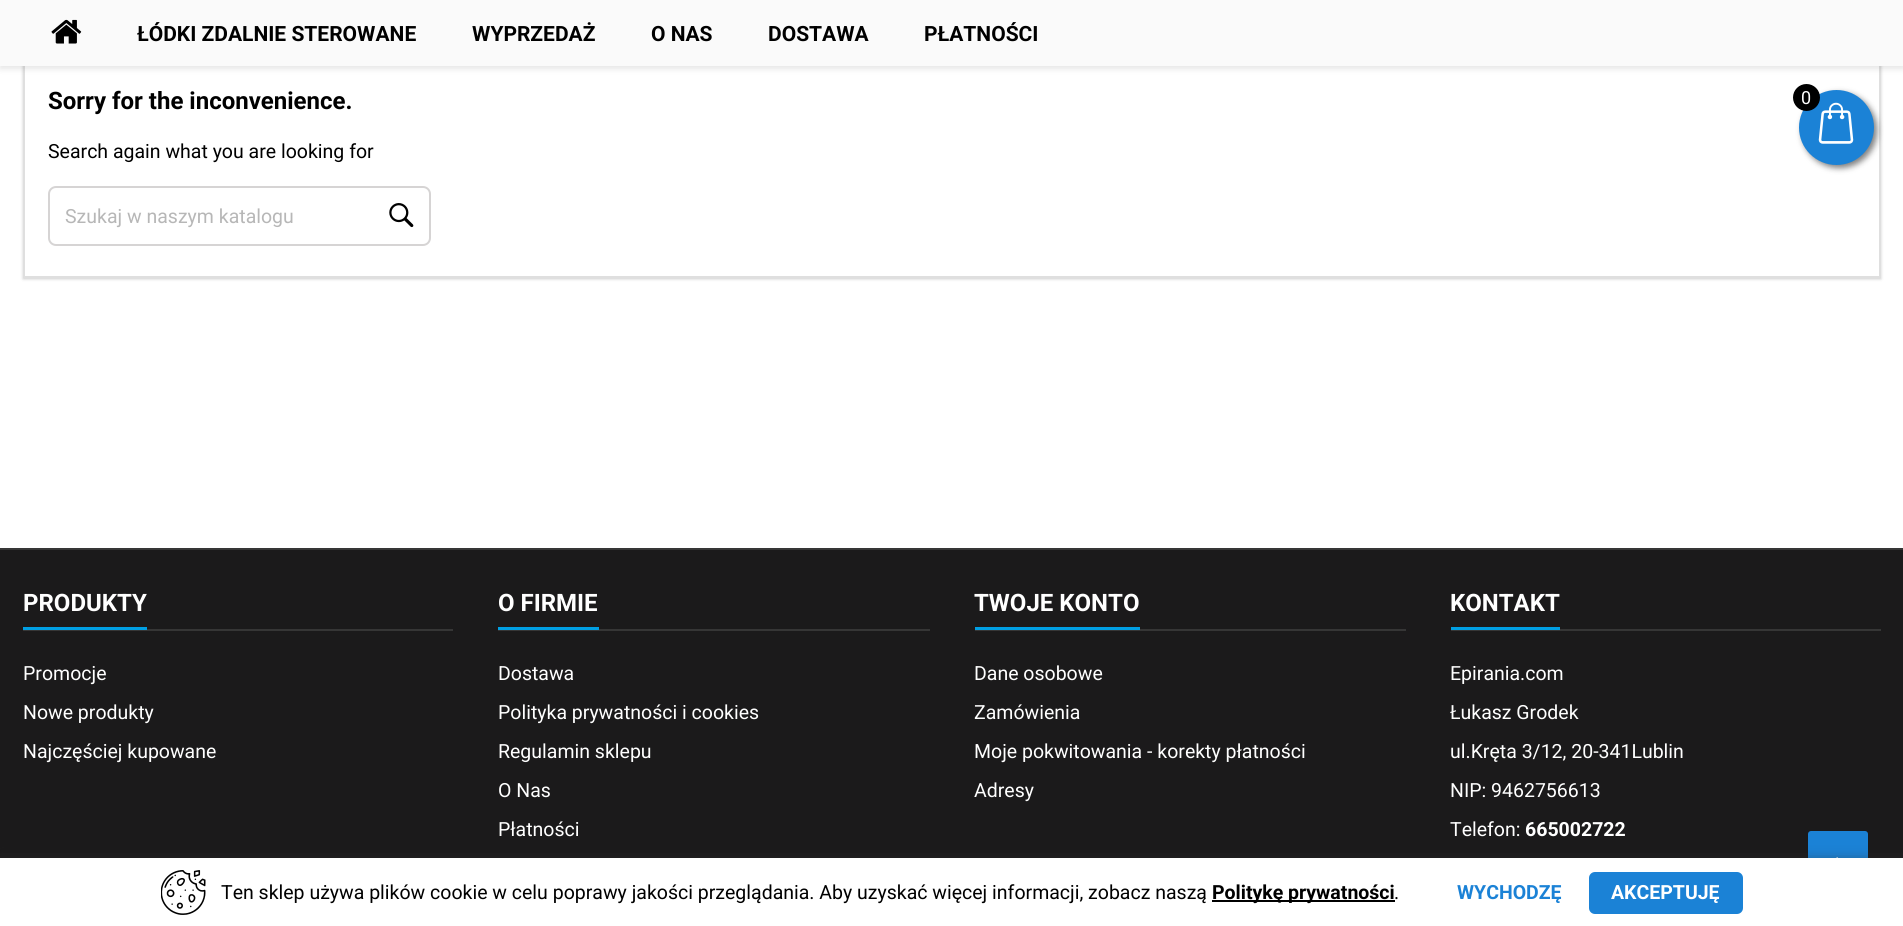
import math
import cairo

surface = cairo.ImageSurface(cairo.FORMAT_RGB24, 1903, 926)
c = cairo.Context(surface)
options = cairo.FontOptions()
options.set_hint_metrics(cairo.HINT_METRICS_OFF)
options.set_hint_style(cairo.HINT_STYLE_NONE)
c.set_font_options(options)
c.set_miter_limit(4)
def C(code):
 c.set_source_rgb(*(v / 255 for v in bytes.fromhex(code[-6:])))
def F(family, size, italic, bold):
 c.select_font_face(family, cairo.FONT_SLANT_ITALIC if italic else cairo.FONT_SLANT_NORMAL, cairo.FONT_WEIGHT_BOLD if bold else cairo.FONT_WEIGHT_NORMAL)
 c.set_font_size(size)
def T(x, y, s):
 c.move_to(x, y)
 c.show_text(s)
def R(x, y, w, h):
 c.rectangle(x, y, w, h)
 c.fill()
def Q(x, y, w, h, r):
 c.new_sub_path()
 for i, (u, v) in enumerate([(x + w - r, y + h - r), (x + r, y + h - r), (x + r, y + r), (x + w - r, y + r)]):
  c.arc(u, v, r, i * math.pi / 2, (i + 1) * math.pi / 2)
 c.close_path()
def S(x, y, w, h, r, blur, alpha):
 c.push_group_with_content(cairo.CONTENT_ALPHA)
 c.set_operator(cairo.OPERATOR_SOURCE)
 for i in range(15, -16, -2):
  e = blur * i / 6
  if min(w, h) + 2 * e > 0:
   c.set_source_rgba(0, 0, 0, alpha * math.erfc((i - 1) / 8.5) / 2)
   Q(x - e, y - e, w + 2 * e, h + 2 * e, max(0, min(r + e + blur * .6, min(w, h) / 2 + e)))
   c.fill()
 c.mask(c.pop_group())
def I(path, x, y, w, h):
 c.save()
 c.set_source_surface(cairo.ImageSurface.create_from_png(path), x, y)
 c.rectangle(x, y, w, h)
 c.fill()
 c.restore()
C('ffffff')
c.paint()
C('000000')
S(23,53,1858,226,0,1.5,.2)
C('ffffff')
R(25,66,1854,210)
c.rectangle(24,52,1856,225)
C('dfdfdf')
c.stroke()
C('000000')
S(0,3,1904,66,0,3,.1)
C('fafafa')
R(0,1,1903,65)
I('1.png',51,19,31,25)
F('Roboto',21,0,1)
C('000000')
T(137,41,'ŁÓDKI ZDALNIE STEROWANE')
T(472,41,'WYPRZEDAŻ')
T(651,41,'O NAS')
T(768,41,'DOSTAWA')
T(924,41,'PŁATNOŚCI')
C('000000')
S(1802,93,75,75,37.5,3,.5)
C('1b82d6')
c.arc(1836.5,127.5,37.5,0,2 * math.pi)
c.fill()
I('2.png',1818,102,36,42)
C('000000')
c.arc(1806.5,97.5,13.5,0,2 * math.pi)
c.fill()
F('Roboto',18,0,0)
C('ffffff')
T(1801,104,'0')
F('Roboto',24,0,1)
C('000000')
T(48,109,'Sorry for the inconvenience.')
F('Roboto',19.5,0,0)
T(48,158,'Search again what you are looking for')
Q(49,187,381,58,7)
C('d6d4d4')
c.stroke()
C('b7b7b7')
T(65,223,'Szukaj w naszym katalogu')
I('3.png',389,203,25,25)
C('1b1a1b')
R(0,550,1903,308)
C('363636')
R(0,548,1903,2)
R(23,629,430,2)
C('009fe3')
R(23,627,124,3)
F('Roboto',24,0,1)
C('ffffff')
T(23,611,'PRODUKTY')
F('Roboto',19.5,0,0)
T(23,680,'Promocje')
T(23,719,'Nowe produkty')
T(23,758,'Najczęściej kupowane')
C('363636')
R(498,629,432,2)
C('009fe3')
R(498,627,101,3)
F('Roboto',24,0,1)
C('ffffff')
T(498,611,'O FIRMIE')
F('Roboto',19.5,0,0)
T(498,680,'Dostawa')
T(498,719,'Polityka prywatności i cookies')
T(498,758,'Regulamin sklepu')
T(498,797,'O Nas')
T(498,836,'Płatności')
C('363636')
R(975,629,431,2)
C('009fe3')
R(975,627,165,3)
F('Roboto',24,0,1)
C('ffffff')
T(974,611,'TWOJE KONTO')
F('Roboto',19.5,0,0)
T(974,680,'Dane osobowe')
T(974,719,'Zamówienia')
T(974,758,'Moje pokwitowania - korekty płatności')
T(974,797,'Adresy')
C('363636')
R(1451,629,430,2)
C('009fe3')
R(1451,627,109,3)
F('Roboto',24,0,1)
C('ffffff')
T(1450,611,'KONTAKT')
F('Roboto',19.5,0,0)
T(1450,680,'Epirania.com')
T(1450,719,'Łukasz Grodek')
T(1450,758,'ul.Kręta 3/12, 20-341Lublin')
T(1450,797,'NIP: 9462756613')
T(1450,836,'Telefon:')
F('Roboto',19.5,0,1)
T(1525,836,'665002722')
C('000000')
S(1808,833,60,60,3,1,.1)
C('1b82d6')
Q(1808,831,60,60,3)
c.fill()
I('5.png',1836,857,2,1)
C('333333')
S(0,864,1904,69,0,7.5,1)
C('ffffff')
R(0,858,1903,68)
I('4.png',161,870,45,45)
F('Roboto',19.5,0,0)
C('000000')
T(221,899,'Ten sklep używa plików cookie w celu poprawy jakości przeglądania. Aby uzyskać więcej informacji, zobacz naszą')
R(1212,900,183,2)
F('Roboto',19.5,0,1)
T(1212,899,'Politykę prywatności')
F('Roboto',19.5,0,0)
T(1394,899,'.')
F('Roboto',19.5,0,1)
C('1b82d6')
T(1457,899,'WYCHODZĘ')
Q(1589,872,154,42,6)
c.fill()
C('ffffff')
T(1611,899,'AKCEPTUJĘ')
surface.write_to_png('o.png')
